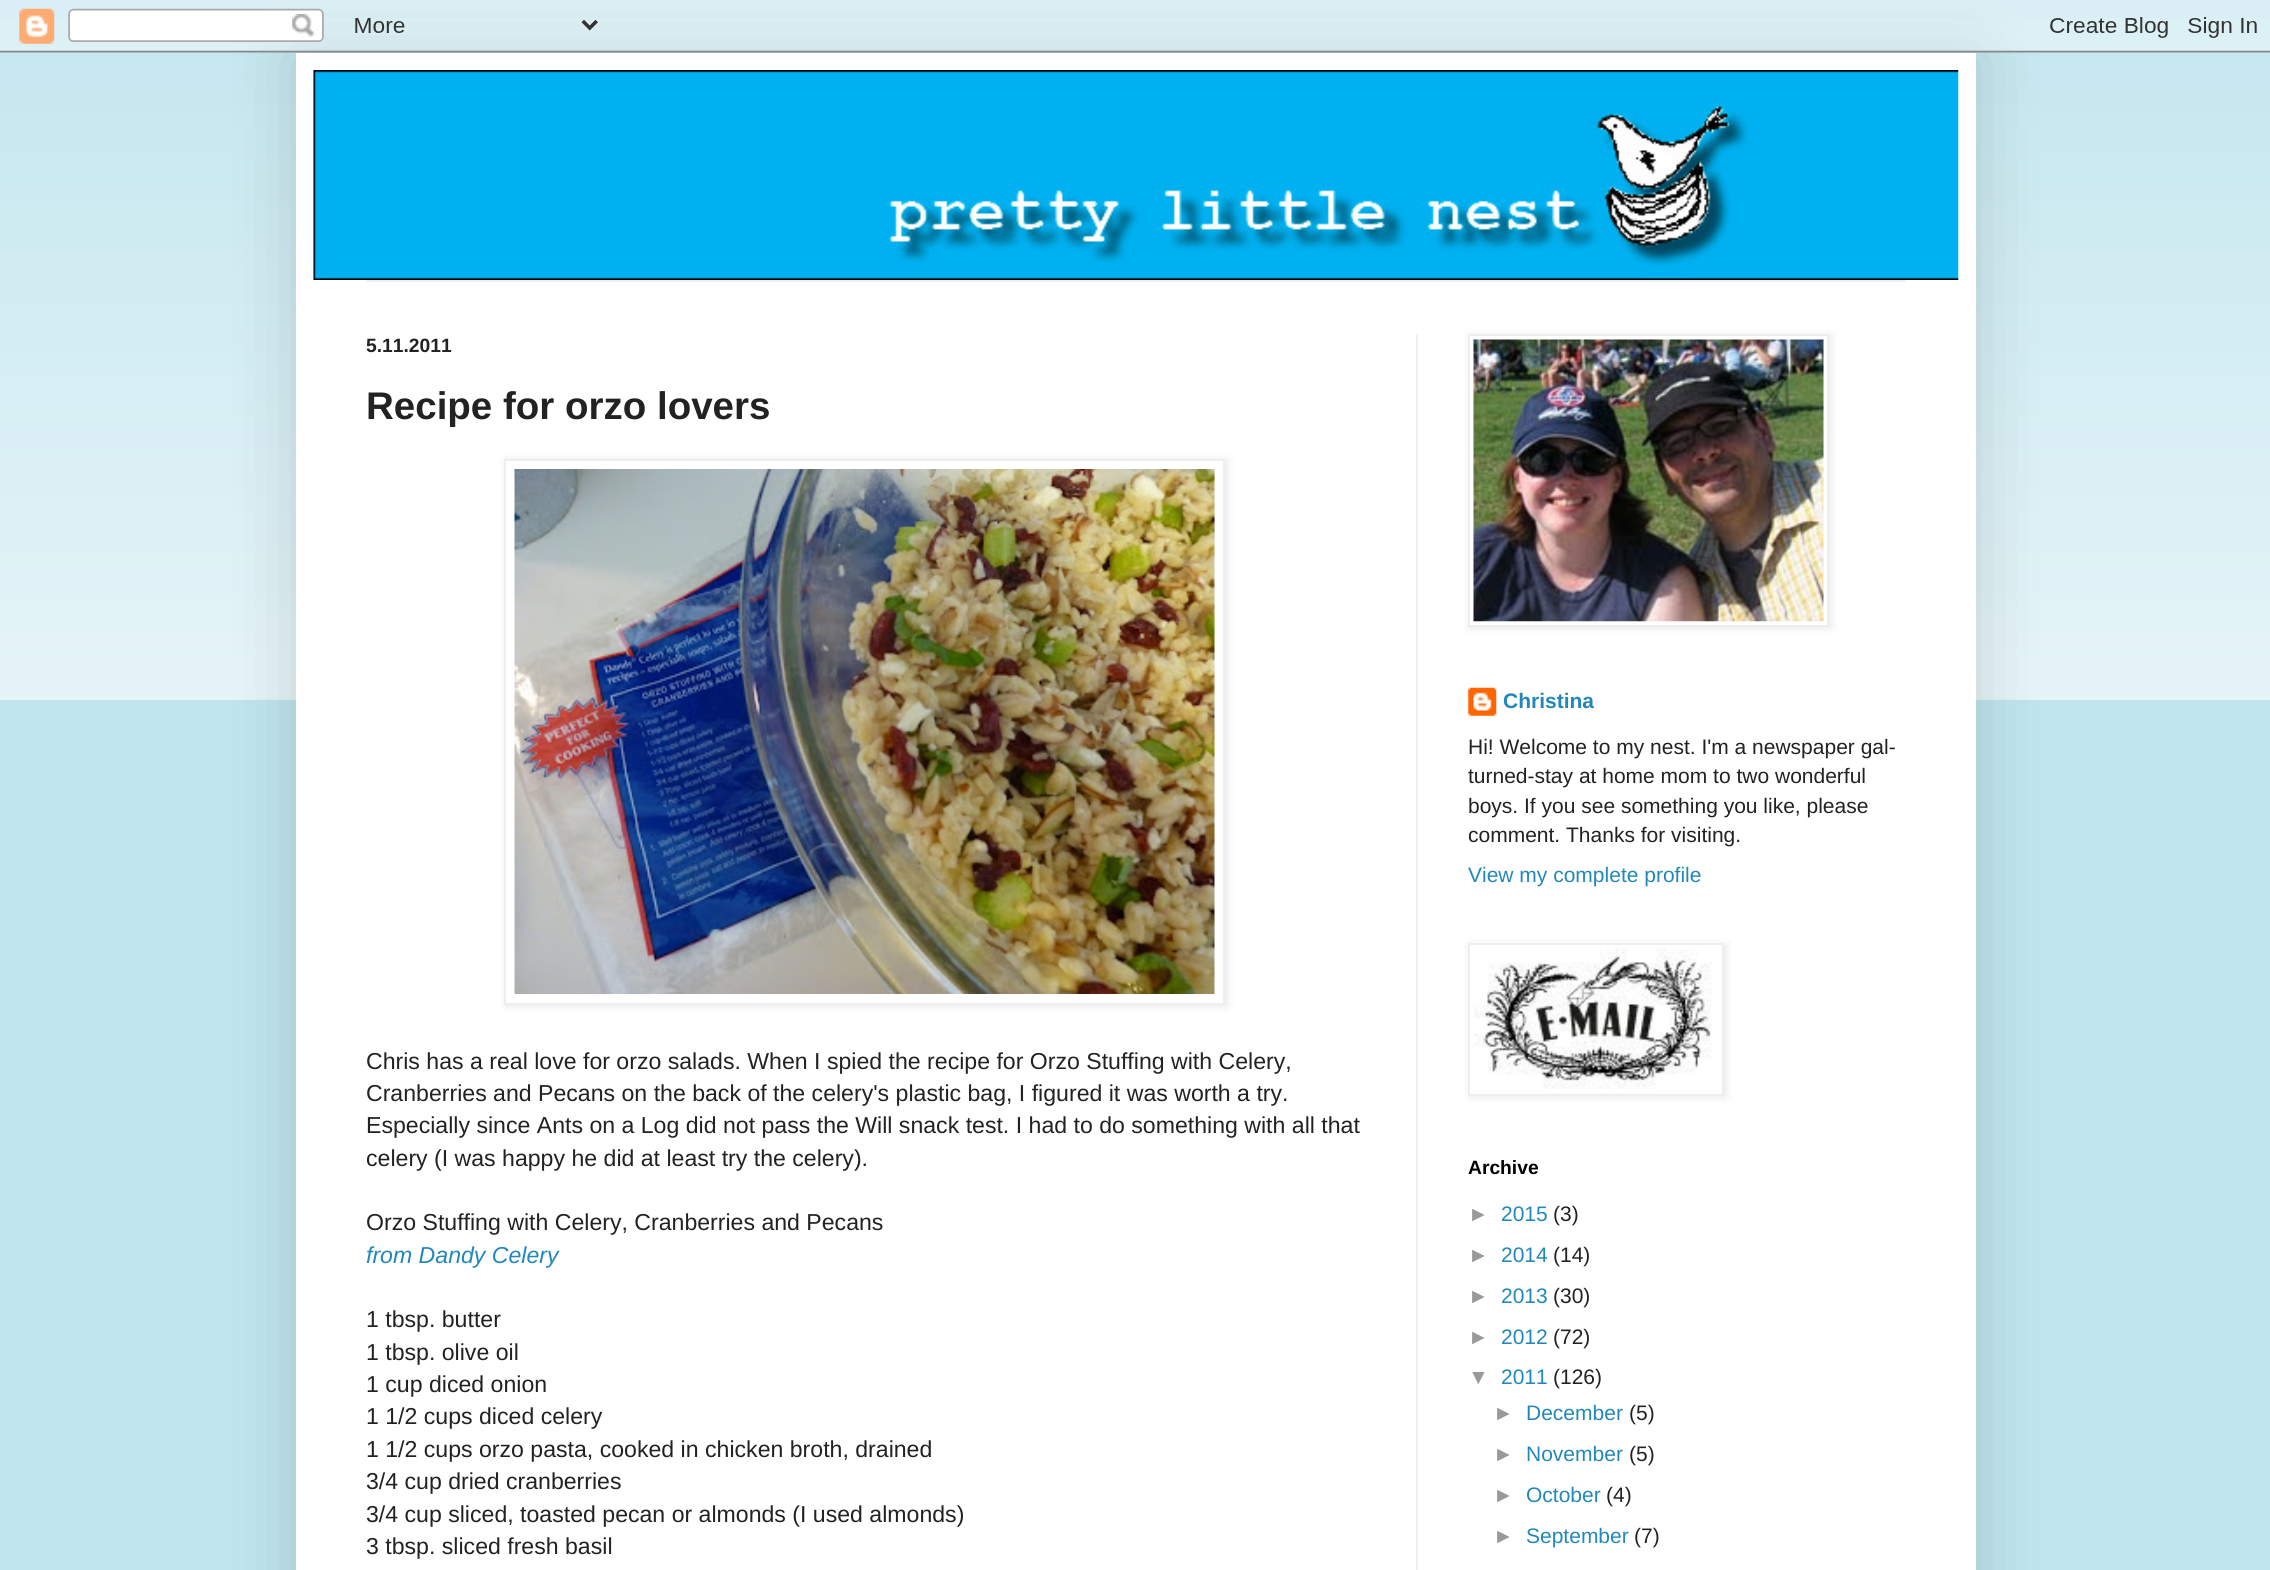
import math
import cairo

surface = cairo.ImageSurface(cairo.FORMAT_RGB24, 2270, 1570)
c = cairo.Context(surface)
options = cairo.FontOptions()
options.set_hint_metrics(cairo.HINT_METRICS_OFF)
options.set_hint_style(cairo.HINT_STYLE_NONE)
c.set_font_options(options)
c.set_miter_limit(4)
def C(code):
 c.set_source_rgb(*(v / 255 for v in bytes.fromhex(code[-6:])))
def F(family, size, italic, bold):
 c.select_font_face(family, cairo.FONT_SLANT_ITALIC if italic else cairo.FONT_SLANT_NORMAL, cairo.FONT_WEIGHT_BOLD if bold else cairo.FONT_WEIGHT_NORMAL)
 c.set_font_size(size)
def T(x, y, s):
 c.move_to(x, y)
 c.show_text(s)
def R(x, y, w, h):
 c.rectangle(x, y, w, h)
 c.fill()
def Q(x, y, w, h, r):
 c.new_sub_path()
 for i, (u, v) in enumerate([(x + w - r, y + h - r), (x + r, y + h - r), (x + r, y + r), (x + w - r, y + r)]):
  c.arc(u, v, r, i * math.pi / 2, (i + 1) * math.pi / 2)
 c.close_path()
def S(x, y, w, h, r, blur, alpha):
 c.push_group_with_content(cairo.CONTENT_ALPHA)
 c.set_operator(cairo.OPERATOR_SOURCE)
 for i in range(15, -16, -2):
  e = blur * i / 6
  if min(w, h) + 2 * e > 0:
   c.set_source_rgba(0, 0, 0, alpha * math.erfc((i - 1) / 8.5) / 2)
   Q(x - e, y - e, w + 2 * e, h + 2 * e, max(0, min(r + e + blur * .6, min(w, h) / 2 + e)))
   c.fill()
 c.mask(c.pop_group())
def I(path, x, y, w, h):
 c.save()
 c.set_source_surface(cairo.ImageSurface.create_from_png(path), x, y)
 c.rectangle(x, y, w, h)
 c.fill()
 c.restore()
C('c0e5ee')
c.paint()
I('2.png',0,18,2270,682)
C('000000')
S(296,53,1680,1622,0,35,.15)
I('1.png',0,0,2270,53)
C('ffffff')
R(296,53,1680,1517)
I('3.png',313,70,1646,210)
C('eeeeee')
R(366,280,1540,2)
R(1416,334,2,1236)
F('Liberation Sans',19.25,0,1)
C('222222')
T(366,352,'5.11.2011')
F('Liberation Sans',38.5,0,1)
T(366,419,'Recipe for orzo lovers')
C('000000')
S(506,460,721,546,0,4.5,.1)
C('ffffff')
c.rectangle(505,460,719,544)
c.fill_preserve()
C('eeeeee')
c.stroke()
I('4.png',514,469,701,525)
F('Liberation Sans',23.1,0,0)
C('222222')
T(366,1069,'Chris has a real love for orzo salads. When I spied the recipe for Orzo Stuffing with Celery,')
T(366,1101,'Cranberries and Pecans on the back of the celery\'s plastic bag, I figured it was worth a try.')
T(366,1133,'Especially since Ants on a Log did not pass the Will snack test. I had to do something with all that')
T(366,1166,'celery (I was happy he did at least try the celery).')
T(366,1230,'Orzo Stuffing with Celery, Cranberries and Pecans')
F('Liberation Sans',23.1,1,0)
C('2288bb')
T(366,1263,'from Dandy Celery')
F('Liberation Sans',23.1,0,0)
C('222222')
T(366,1327,'1 tbsp. butter')
T(366,1360,'1 tbsp. olive oil')
T(366,1392,'1 cup diced onion')
T(366,1424,'1 1/2 cups diced celery')
T(366,1457,'1 1/2 cups orzo pasta, cooked in chicken broth, drained')
T(366,1489,'3/4 cup dried cranberries')
T(366,1522,'3/4 cup sliced, toasted pecan or almonds (I used almonds)')
T(366,1554,'3 tbsp. sliced fresh basil')
C('000000')
S(1470,336,361,292,0,4.5,.1)
C('ffffff')
c.rectangle(1469,335,359,291)
c.fill_preserve()
C('eeeeee')
c.stroke()
I('5.png',1473,339,351,283)
I('6.png',1468,687,29,29)
F('Liberation Sans',21,0,1)
C('2288bb')
T(1503,708,'Christina')
F('Liberation Sans',21,0,0)
C('222222')
T(1468,754,'Hi! Welcome to my nest. I\'m a newspaper gal-')
T(1468,783,'turned-stay at home mom to two wonderful')
T(1468,813,'boys. If you see something you like, please')
T(1468,842,'comment. Thanks for visiting.')
C('2288bb')
T(1468,882,'View my complete profile')
C('000000')
S(1470,945,256,152,0,4.5,.1)
C('ffffff')
c.rectangle(1469,944,254,151)
c.fill_preserve()
C('eeeeee')
c.stroke()
I('7.png',1473,948,239,141)
F('Liberation Sans',19.25,0,1)
C('000000')
T(1468,1174,'Archive')
F('Liberation Sans',21,0,0)
C('999999')
T(1468,1221,'►')
C('2288bb')
T(1501,1221,'2015')
C('222222')
T(1553,1221,'(3)')
C('999999')
T(1468,1262,'►')
C('2288bb')
T(1501,1262,'2014')
C('222222')
T(1553,1262,'(14)')
C('999999')
T(1468,1303,'►')
C('2288bb')
T(1501,1303,'2013')
C('222222')
T(1553,1303,'(30)')
C('999999')
T(1468,1344,'►')
C('2288bb')
T(1501,1344,'2012')
C('222222')
T(1553,1344,'(72)')
C('999999')
T(1468,1384,'▼')
C('2288bb')
T(1501,1384,'2011')
C('222222')
T(1553,1384,'(126)')
C('999999')
T(1493,1420,'►')
C('2288bb')
T(1526,1420,'December')
C('222222')
T(1629,1420,'(5)')
C('999999')
T(1493,1461,'►')
C('2288bb')
T(1526,1461,'November')
C('222222')
T(1629,1461,'(5)')
C('999999')
T(1493,1502,'►')
C('2288bb')
T(1526,1502,'October')
C('222222')
T(1606,1502,'(4)')
C('999999')
T(1493,1543,'►')
C('2288bb')
T(1526,1543,'September')
C('222222')
T(1634,1543,'(7)')
surface.write_to_png('o.png')
